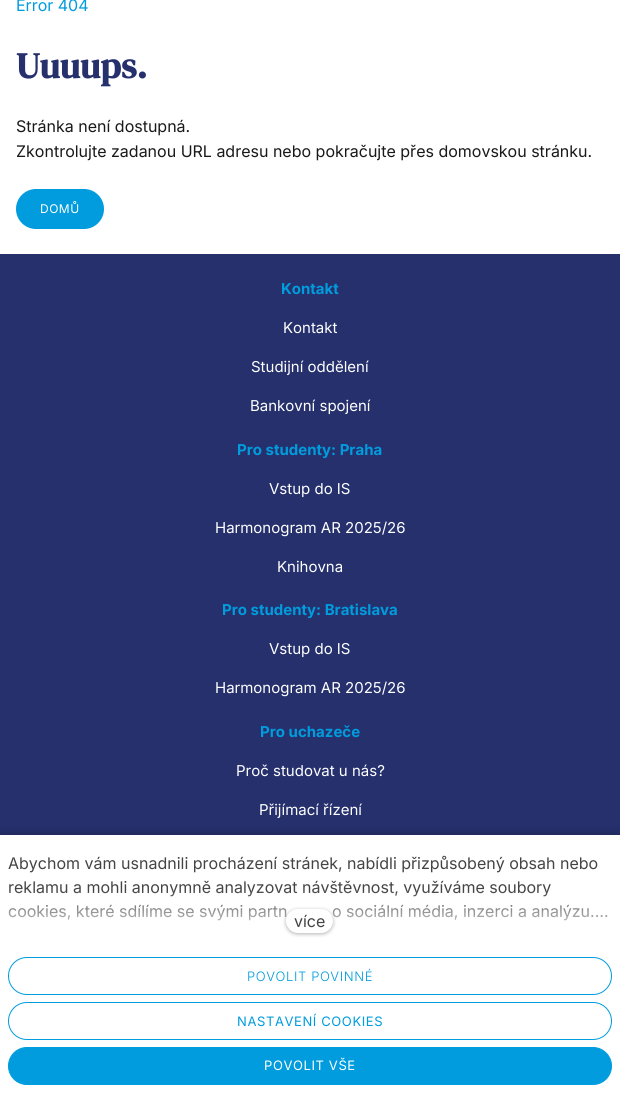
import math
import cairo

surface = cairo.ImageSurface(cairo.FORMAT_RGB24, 620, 1101)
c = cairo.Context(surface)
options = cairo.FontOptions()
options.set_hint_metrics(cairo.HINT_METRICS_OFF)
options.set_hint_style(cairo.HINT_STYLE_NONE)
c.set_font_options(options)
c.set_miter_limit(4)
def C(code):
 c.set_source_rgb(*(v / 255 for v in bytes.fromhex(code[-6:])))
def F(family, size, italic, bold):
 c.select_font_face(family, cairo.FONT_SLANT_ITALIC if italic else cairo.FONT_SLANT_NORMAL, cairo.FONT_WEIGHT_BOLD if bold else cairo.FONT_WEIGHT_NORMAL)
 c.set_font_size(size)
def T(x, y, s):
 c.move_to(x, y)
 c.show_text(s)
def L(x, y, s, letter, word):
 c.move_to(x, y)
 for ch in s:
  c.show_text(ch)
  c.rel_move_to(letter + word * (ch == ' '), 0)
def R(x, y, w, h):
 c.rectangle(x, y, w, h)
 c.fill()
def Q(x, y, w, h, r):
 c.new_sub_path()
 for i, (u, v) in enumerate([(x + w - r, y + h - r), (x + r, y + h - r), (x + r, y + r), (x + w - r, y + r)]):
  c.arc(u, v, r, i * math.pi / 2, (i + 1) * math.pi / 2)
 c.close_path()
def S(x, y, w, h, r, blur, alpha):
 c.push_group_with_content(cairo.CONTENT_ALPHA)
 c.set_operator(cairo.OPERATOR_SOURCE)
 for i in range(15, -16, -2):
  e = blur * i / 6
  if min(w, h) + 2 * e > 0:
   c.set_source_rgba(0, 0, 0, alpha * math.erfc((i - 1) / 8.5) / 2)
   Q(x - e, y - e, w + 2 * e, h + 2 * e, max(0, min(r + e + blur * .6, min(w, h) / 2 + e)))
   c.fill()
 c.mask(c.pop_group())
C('ffffff')
c.paint()
F('Inter',16,0,0)
C('009cdd')
T(16,11,'Error 404')
F('DM Serif Text',36,0,1)
C('25306d')
T(16,78,'Uuuups.')
F('Inter',16,0,0)
C('191919')
T(16,132,'Stránka není dostupná.')
T(16,157,'Zkontrolujte zadanou URL adresu nebo pokračujte přes domovskou stránku.')
C('009cdd')
Q(16,189,88,40,20)
c.fill()
F('Inter',12,0,0)
C('ffffff')
L(40,213,'DOMŮ',.5,0)
C('25306d')
R(0,254,620,581)
F('Inter',15,0,1)
C('009cdd')
T(281,294,'Kontakt')
F('Inter',15,0,0)
C('ffffff')
T(283,333,'Kontakt')
T(251,372,'Studijní oddělení')
T(250,411,'Bankovní spojení')
F('Inter',15,0,1)
C('009cdd')
T(237,455,'Pro studenty: Praha')
F('Inter',15,0,0)
C('ffffff')
T(269,494,'Vstup do IS')
T(215,533,'Harmonogram AR 2025/26')
T(277,572,'Knihovna')
F('Inter',15,0,1)
C('009cdd')
T(222,615,'Pro studenty: Bratislava')
F('Inter',15,0,0)
C('ffffff')
T(269,654,'Vstup do IS')
T(215,693,'Harmonogram AR 2025/26')
F('Inter',15,0,1)
C('009cdd')
T(260,737,'Pro uchazeče')
F('Inter',15,0,0)
C('ffffff')
T(236,776,'Proč studovat u nás?')
T(259,815,'Přijímací řízení')
C('000000')
S(0,835,620,266,0,6,.25)
C('ffffff')
R(0,835,620,266)
F('Inter',16,0,0)
C('444444')
T(8,869,'Abychom vám usnadnili procházení stránek, nabídli přizpůsobený obsah nebo')
T(8,893,'reklamu a mohli anonymně analyzovat návštěvnost, využíváme soubory')
T(8,917,'cookies, které sdílíme se svými partn')
T(332,917,'o sociální média, inzerci a analýzu.…')
gradient = cairo.LinearGradient(310,941,310,890)
gradient.add_color_stop_rgba(0,1,1,1,1)
gradient.add_color_stop_rgba(1,1,1,1,0)
c.set_source(gradient)
R(8,891,600,30)
C('000000')
S(286,910,47,24,12,2,.3)
C('ffffff')
Q(286,909,47,24,12)
c.fill()
C('444444')
T(294,927,'více')
Q(8.5,957.5,603,37,18.5)
C('009cdd')
c.set_line_width(1)
c.stroke()
F('Inter Light',13,0,0)
L(247,981,'POVOLIT POVINNÉ',.6,0)
Q(8.5,1002.5,603,37,18.5)
c.stroke()
F('Inter',13,0,0)
L(237,1026,'NASTAVENÍ COOKIES',.6,0)
Q(8.5,1047.5,603,37,18.5)
c.fill_preserve()
c.stroke()
C('ffffff')
L(264,1070,'POVOLIT VŠE',.6,0)
surface.write_to_png('o.png')
